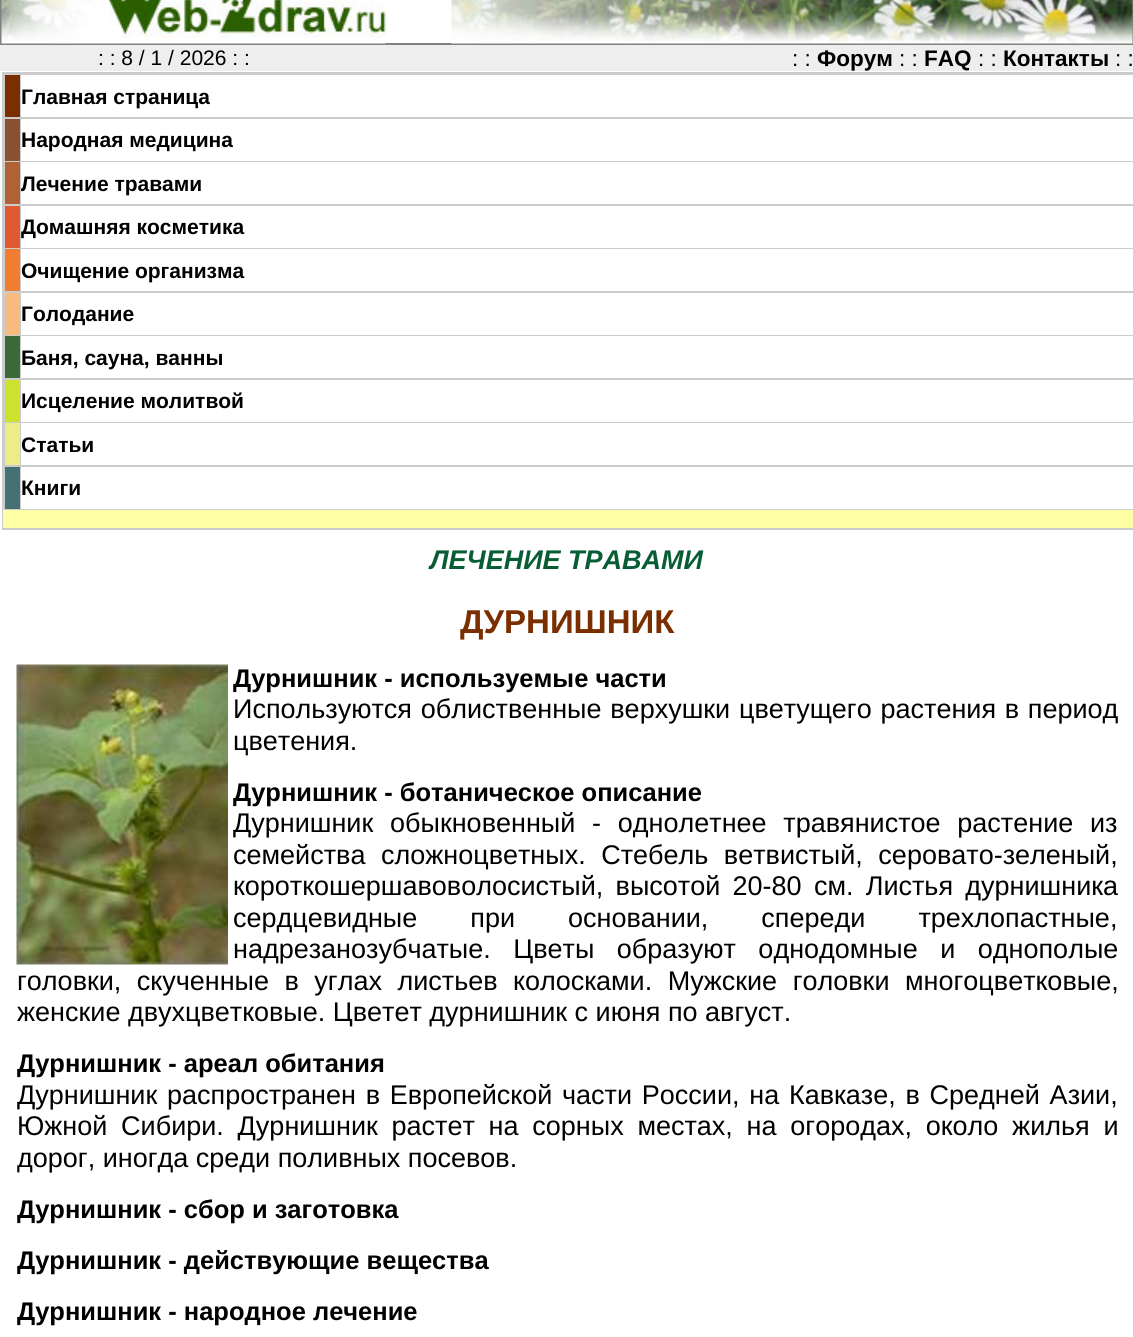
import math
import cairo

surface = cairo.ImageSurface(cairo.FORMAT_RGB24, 1133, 1337)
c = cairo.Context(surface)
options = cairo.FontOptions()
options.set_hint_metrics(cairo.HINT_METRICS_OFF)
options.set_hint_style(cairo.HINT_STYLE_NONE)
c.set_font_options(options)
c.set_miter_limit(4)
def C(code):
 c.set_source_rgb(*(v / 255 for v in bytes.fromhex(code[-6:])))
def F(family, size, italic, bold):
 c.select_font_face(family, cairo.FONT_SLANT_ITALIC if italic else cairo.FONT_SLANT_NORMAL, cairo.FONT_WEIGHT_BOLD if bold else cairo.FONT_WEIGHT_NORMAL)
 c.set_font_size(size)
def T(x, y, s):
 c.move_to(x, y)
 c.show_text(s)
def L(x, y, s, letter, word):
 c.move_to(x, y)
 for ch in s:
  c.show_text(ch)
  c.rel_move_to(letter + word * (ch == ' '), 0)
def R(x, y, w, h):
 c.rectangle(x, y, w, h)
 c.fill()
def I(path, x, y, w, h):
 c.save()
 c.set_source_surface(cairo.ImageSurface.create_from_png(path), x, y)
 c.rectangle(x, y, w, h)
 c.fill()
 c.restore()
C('ffffff')
c.paint()
c.rectangle(1,-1,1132,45)
C('808080')
c.stroke()
I('1.png',1,0,385,44)
I('2.png',451,0,682,44)
C('eeeeee')
R(0,45,1133,26)
F('Liberation Sans',21,0,0)
C('000000')
T(98,65,': : 8 / 1 / 2026 : :')
F('Liberation Sans',22.5,0,0)
T(792,66,': :')
F('Liberation Sans',22.5,0,1)
T(817,66,'Форум')
F('Liberation Sans',22.5,0,0)
T(899,66,': :')
F('Liberation Sans',22.5,0,1)
T(924,66,'FAQ')
F('Liberation Sans',22.5,0,0)
T(978,66,': :')
F('Liberation Sans',22.5,0,1)
T(1003,66,'Контакты')
F('Liberation Sans',22.5,0,0)
T(1115,66,': :')
c.rectangle(3,73,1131,456)
C('cccccc')
c.stroke()
R(4,74,1129,436)
C('7b2f01')
R(5,75,15,42)
C('ffffff')
R(21,75,1112,42)
F('Liberation Sans',21,0,1)
C('000000')
T(21,104,'Главная страница')
C('8b4f31')
R(5,119,15,42)
C('ffffff')
R(21,119,1112,42)
C('000000')
T(21,147,'Народная медицина')
C('b06236')
R(5,162,15,42)
C('ffffff')
R(21,162,1112,42)
C('000000')
T(21,191,'Лечение травами')
C('e05a31')
R(5,206,15,42)
C('ffffff')
R(21,206,1112,42)
C('000000')
T(21,234,'Домашняя косметика')
C('f17e30')
R(5,249,15,42)
C('ffffff')
R(21,249,1112,42)
C('000000')
T(21,278,'Очищение организма')
C('f7ba7f')
R(5,293,15,42)
C('ffffff')
R(21,293,1112,42)
C('000000')
T(21,321,'Голодание')
C('3b6939')
R(5,336,15,42)
C('ffffff')
R(21,336,1112,42)
C('000000')
T(21,365,'Баня, сауна, ванны')
C('cce22d')
R(5,380,15,42)
C('ffffff')
R(21,380,1112,42)
C('000000')
T(21,408,'Исцеление молитвой')
C('ebee88')
R(5,423,15,42)
C('ffffff')
R(21,423,1112,42)
C('000000')
T(21,452,'Статьи')
C('447274')
R(5,467,15,42)
C('ffffff')
R(21,467,1112,42)
C('000000')
T(21,495,'Книги')
C('ffffa6')
R(3,510,1130,18)
F('Liberation Sans',27,1,1)
C('085e34')
T(430,569,'ЛЕЧЕНИЕ ТРАВАМИ')
F('Liberation Sans',33,0,1)
C('7b2f01')
T(460,633,'ДУРНИШНИК')
I('3.png',16,664,212,301)
F('Liberation Sans',25.5,0,1)
C('000000')
T(233,687,'Дурнишник - используемые части')
F('Liberation Sans',27,0,0)
L(233,718,'Используются облиственные верхушки цветущего растения в период',0,1.25)
T(233,750,'цветения.')
F('Liberation Sans',25.5,0,1)
T(233,801,'Дурнишник - ботаническое описание')
F('Liberation Sans',27,0,0)
L(233,832,'Дурнишник обыкновенный - однолетнее травянистое растение из',0,9.25)
L(233,864,'семейства сложноцветных. Стебель ветвистый, серовато-зеленый,',0,8)
L(233,895,'короткошершавоволосистый, высотой 20-80 см. Листья дурнишника',0,4.75)
L(233,927,'сердцевидные при основании, спереди трехлопастные,',0,45.5)
L(233,958,'надрезанозубчатые. Цветы образуют однодомные и однополые',0,15)
L(17,990,'головки, скученные в углах листьев колосками. Мужские головки многоцветковые,',0,8)
T(17,1021,'женские двухцветковые. Цветет дурнишник с июня по август.')
F('Liberation Sans',25.5,0,1)
T(17,1072,'Дурнишник - ареал обитания')
F('Liberation Sans',27,0,0)
L(17,1104,'Дурнишник распространен в Европейской части России, на Кавказе, в Средней Азии,',0,2.25)
L(17,1135,'Южной Сибири. Дурнишник растет на сорных местах, на огородах, около жилья и',0,6.25)
T(17,1167,'дорог, иногда среди поливных посевов.')
F('Liberation Sans',25.5,0,1)
T(17,1218,'Дурнишник - сбор и заготовка')
T(17,1269,'Дурнишник - действующие вещества')
T(17,1320,'Дурнишник - народное лечение')
surface.write_to_png('o.png')
